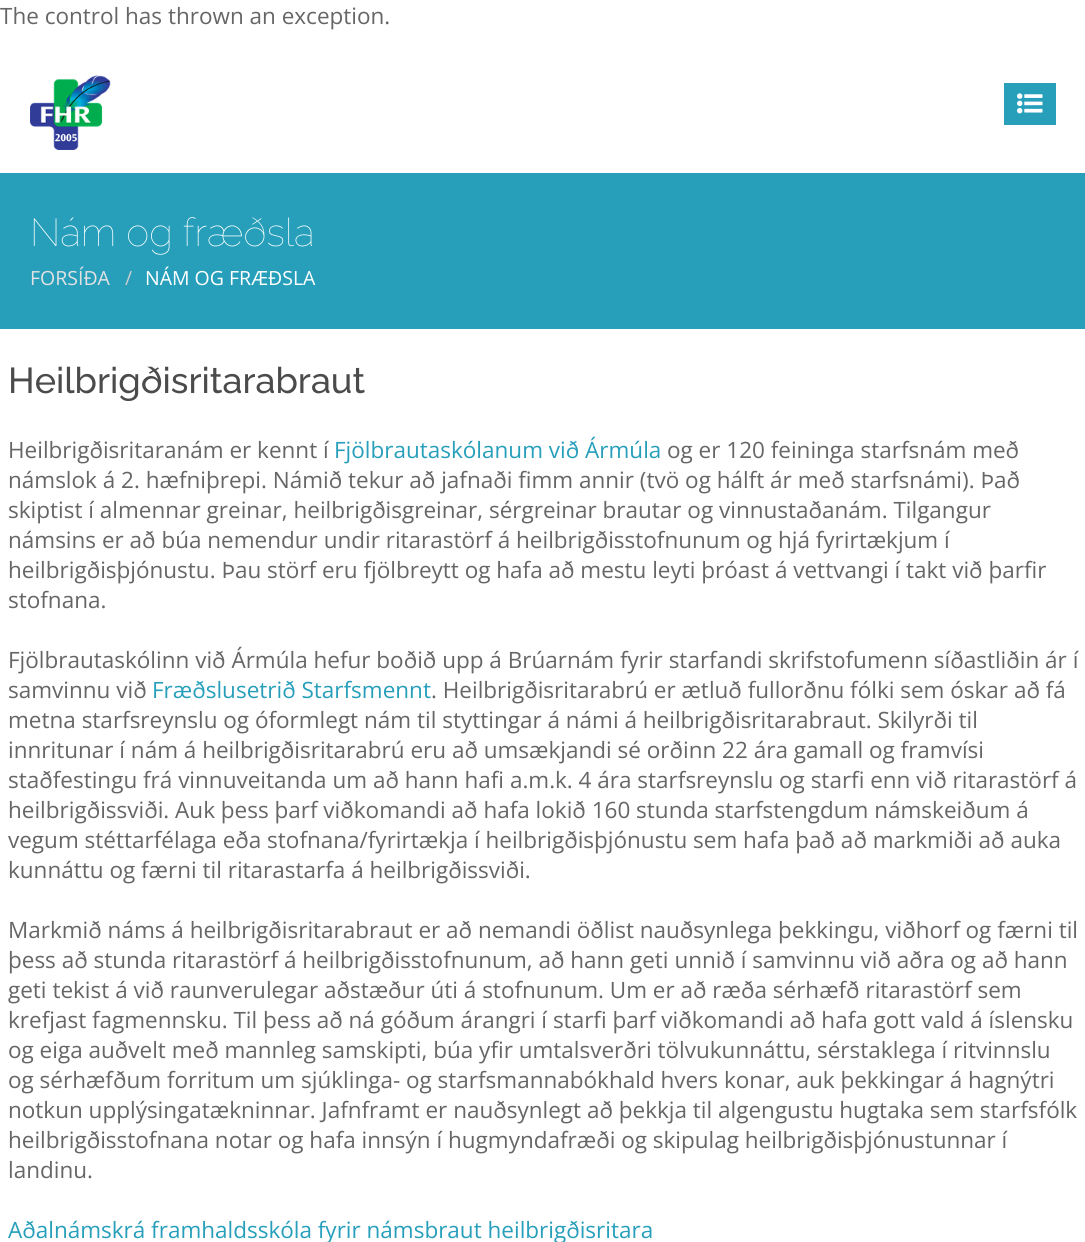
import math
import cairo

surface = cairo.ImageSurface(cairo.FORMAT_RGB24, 1085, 1242)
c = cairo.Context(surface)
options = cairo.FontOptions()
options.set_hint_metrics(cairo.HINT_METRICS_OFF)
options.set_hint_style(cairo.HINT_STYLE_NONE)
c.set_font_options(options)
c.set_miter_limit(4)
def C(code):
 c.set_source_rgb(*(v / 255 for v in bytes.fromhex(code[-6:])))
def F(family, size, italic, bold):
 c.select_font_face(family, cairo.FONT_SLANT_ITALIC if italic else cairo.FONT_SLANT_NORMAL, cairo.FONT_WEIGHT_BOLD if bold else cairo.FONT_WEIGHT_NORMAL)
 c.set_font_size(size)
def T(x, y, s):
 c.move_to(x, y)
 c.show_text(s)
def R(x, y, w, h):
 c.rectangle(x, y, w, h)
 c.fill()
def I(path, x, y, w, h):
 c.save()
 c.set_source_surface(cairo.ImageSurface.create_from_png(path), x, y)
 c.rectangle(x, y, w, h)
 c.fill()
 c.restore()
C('ffffff')
c.paint()
F('Open Sans',22.5,0,0)
C('666666')
T(0,24,'The control has thrown an exception.')
I('1.png',30,75,81,75)
C('279fbb')
R(1004,83,52,42)
I('2.png',1017,93,26,21)
R(0,173,1085,156)
F('Raleway Thin',39,0,0)
C('ffffff')
T(30,246,'Nám og fræðsla')
F('Open Sans',19.5,0,0)
C('e2e2e2')
T(30,285,'FORSÍÐA')
C('cccccc')
T(125,285,'/')
C('ffffff')
T(145,285,'NÁM OG FRÆÐSLA')
F('Raleway Medium',36,0,0)
C('4b4b4b')
T(8,393,'Heilbrigðisritarabraut')
F('Open Sans',22.5,0,0)
C('666666')
T(8,458,'Heilbrigðisritaranám er kennt í')
C('279fbb')
T(334,458,'Fjölbrautaskólanum við Ármúla')
C('666666')
T(667,458,'og er 120 feininga starfsnám með')
T(8,488,'námslok á 2. hæfniþrepi. Námið tekur að jafnaði fimm annir (tvö og hálft ár með starfsnámi). Það')
T(8,518,'skiptist í almennar greinar, heilbrigðisgreinar, sérgreinar brautar og vinnustaðanám. Tilgangur')
T(8,548,'námsins er að búa nemendur undir ritarastörf á heilbrigðisstofnunum og hjá fyrirtækjum í')
T(8,578,'heilbrigðisþjónustu. Þau störf eru fjölbreytt og hafa að mestu leyti þróast á vettvangi í takt við þarfir')
T(8,608,'stofnana.')
T(8,668,'Fjölbrautaskólinn við Ármúla hefur boðið upp á Brúarnám fyrir starfandi skrifstofumenn síðastliðin ár í')
T(8,698,'samvinnu við')
C('279fbb')
T(152,698,'Fræðslusetrið Starfsmennt')
C('666666')
T(431,698,'. Heilbrigðisritarabrú er ætluð fullorðnu fólki sem óskar að fá')
T(8,728,'metna starfsreynslu og óformlegt nám til styttingar á námi á heilbrigðisritarabraut. Skilyrði til')
T(8,758,'innritunar í nám á heilbrigðisritarabrú eru að umsækjandi sé orðinn 22 ára gamall og framvísi')
T(8,788,'staðfestingu frá vinnuveitanda um að hann hafi a.m.k. 4 ára starfsreynslu og starfi enn við ritarastörf á')
T(8,818,'heilbrigðissviði. Auk þess þarf viðkomandi að hafa lokið 160 stunda starfstengdum námskeiðum á')
T(8,848,'vegum stéttarfélaga eða stofnana/fyrirtækja í heilbrigðisþjónustu sem hafa það að markmiði að auka')
T(8,878,'kunnáttu og færni til ritarastarfa á heilbrigðissviði.')
T(8,938,'Markmið náms á heilbrigðisritarabraut er að nemandi öðlist nauðsynlega þekkingu, viðhorf og færni til')
T(8,968,'þess að stunda ritarastörf á heilbrigðisstofnunum, að hann geti unnið í samvinnu við aðra og að hann')
T(8,998,'geti tekist á við raunverulegar aðstæður úti á stofnunum. Um er að ræða sérhæfð ritarastörf sem')
T(8,1028,'krefjast fagmennsku. Til þess að ná góðum árangri í starfi þarf viðkomandi að hafa gott vald á íslensku')
T(8,1058,'og eiga auðvelt með mannleg samskipti, búa yfir umtalsverðri tölvukunnáttu, sérstaklega í ritvinnslu')
T(8,1088,'og sérhæfðum forritum um sjúklinga- og starfsmannabókhald hvers konar, auk þekkingar á hagnýtri')
T(8,1118,'notkun upplýsingatækninnar. Jafnframt er nauðsynlegt að þekkja til algengustu hugtaka sem starfsfólk')
T(8,1148,'heilbrigðisstofnana notar og hafa innsýn í hugmyndafræði og skipulag heilbrigðisþjónustunnar í')
T(8,1178,'landinu.')
C('279fbb')
T(8,1238,'Aðalnámskrá framhaldsskóla fyrir námsbraut heilbrigðisritara')
surface.write_to_png('o.png')
